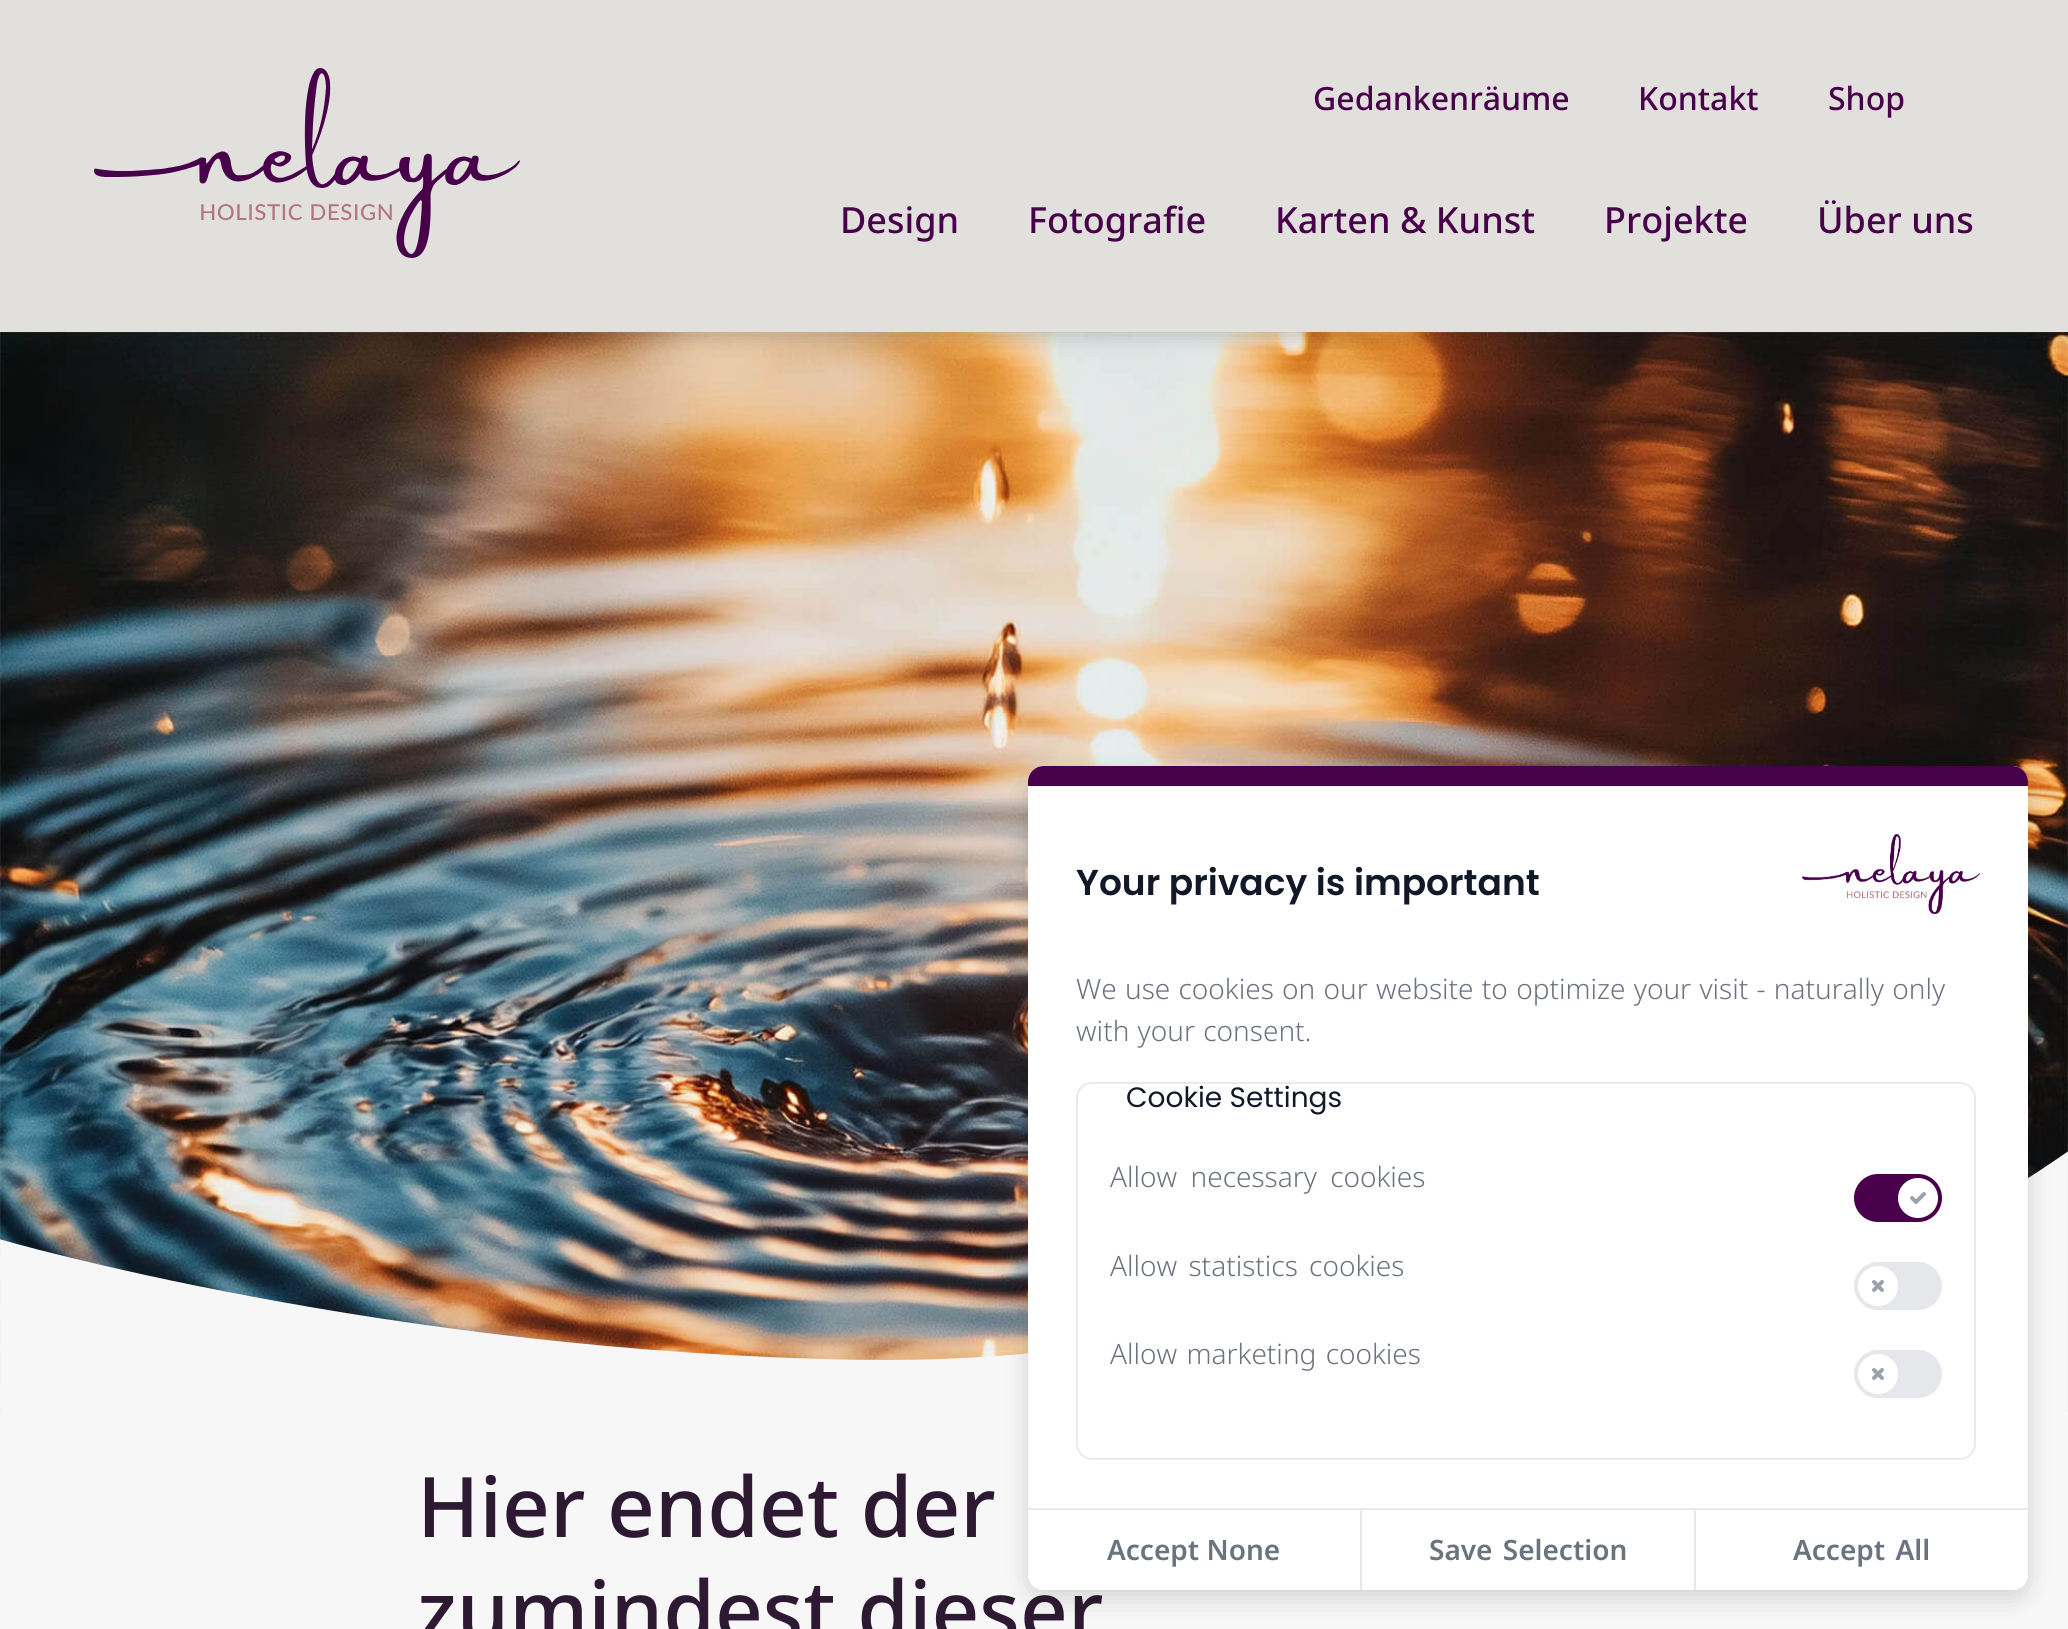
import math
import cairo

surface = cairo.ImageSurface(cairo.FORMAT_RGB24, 2068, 1629)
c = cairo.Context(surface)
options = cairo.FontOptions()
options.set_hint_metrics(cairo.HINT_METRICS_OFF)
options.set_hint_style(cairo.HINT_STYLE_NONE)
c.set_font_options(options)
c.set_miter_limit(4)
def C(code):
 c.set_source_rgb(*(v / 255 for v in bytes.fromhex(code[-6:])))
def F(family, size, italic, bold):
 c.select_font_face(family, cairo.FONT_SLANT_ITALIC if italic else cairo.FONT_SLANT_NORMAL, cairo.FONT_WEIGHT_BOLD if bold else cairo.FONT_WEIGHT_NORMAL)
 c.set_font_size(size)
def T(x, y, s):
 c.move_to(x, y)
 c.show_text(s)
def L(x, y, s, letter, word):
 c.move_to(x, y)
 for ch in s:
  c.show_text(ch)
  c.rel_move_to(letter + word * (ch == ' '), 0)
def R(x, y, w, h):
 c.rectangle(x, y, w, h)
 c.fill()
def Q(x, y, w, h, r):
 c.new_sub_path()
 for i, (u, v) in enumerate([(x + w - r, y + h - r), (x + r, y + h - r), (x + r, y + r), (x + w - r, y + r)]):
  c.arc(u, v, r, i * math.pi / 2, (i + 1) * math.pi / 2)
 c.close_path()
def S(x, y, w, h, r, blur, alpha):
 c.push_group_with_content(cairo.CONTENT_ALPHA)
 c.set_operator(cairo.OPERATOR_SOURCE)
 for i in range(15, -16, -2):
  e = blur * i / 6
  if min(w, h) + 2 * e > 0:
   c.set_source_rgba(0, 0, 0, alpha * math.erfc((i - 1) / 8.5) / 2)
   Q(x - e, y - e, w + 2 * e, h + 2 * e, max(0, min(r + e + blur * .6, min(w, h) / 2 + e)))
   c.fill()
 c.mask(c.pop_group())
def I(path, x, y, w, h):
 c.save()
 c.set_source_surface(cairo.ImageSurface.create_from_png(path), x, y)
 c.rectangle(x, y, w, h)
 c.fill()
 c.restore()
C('f7f7f7')
c.paint()
I('2.png',0,332,2068,1080)
C('252525')
S(0,6,2068,332,0,10,.2)
C('e2e0dd')
R(0,0,2068,332)
I('1.png',94,68,426,190)
F('Noto Sans Medium',32,0,0)
C('48004b')
T(1313,110,'Gedankenräume')
T(1638,110,'Kontakt')
T(1828,110,'Shop')
F('Noto Sans Medium',36,0,0)
T(840,233,'Design')
T(1028,233,'Fotografie')
T(1275,233,'Karten & Kunst')
T(1604,233,'Projekte')
T(1817,233,'Über uns')
I('3.png',0,1151,2068,261)
F('Noto Sans Medium',83.5,0,0)
C('2d1931')
T(417,1537,'Hier endet der')
T(417,1641,'zumindest dieser')
C('000000')
S(1028,774,1000,824,16,12,.15)
C('ffffff')
Q(1028,766,1000,824,16)
c.fill()
C('48004b')
c.new_path()
c.move_to(1044,766)
c.line_to(2012,766)
c.curve_to(2021,766,2028,773,2028,782)
c.line_to(2028,786)
c.line_to(1028,786)
c.line_to(1028,782)
c.curve_to(1028,773,1035,766,1044,766)
c.close_path()
c.fill()
F('Poppins SemiBold',36,0,0)
C('111827')
T(1076,895,'Your privacy is important')
I('4.png',1802,834,178,80)
F('Noto Sans Light',28,0,0)
C('6b7280')
L(1076,999,'We use cookies on our website to optimize your visit - naturally only',0,1)
L(1076,1041,'with your consent.',0,1)
Q(1077,1083,898,376,15)
C('eaeaea')
c.stroke()
F('Poppins',28,0,0)
C('111827')
T(1126,1107,'Cookie Settings')
F('Noto Sans Light',28,0,0)
C('6b7280')
L(1110,1187,'Allow necessary cookies',0,6)
C('48004b')
Q(1854,1174,88,48,24)
c.fill()
C('ffffff')
c.arc(1918,1198,20,0,2 * math.pi)
c.fill()
c.new_path()
c.move_to(1924,1194)
c.line_to(1916,1202)
c.line_to(1912,1198)
C('9ca3af')
c.set_line_width(4)
c.set_line_cap(cairo.LINE_CAP_ROUND)
c.set_line_join(cairo.LINE_JOIN_ROUND)
c.stroke()
C('6b7280')
L(1110,1276,'Allow statistics cookies',0,4)
C('e5e7eb')
Q(1854,1262,88,48,24)
c.fill()
C('ffffff')
c.arc(1878,1286,20,0,2 * math.pi)
c.fill()
c.new_path()
c.move_to(1878,1286)
c.line_to(1882,1290)
c.move_to(1874,1290)
c.line_to(1878,1286)
c.close_path()
c.move_to(1878,1286)
c.line_to(1882,1282)
c.close_path()
c.move_to(1878,1286)
c.line_to(1874,1282)
c.close_path()
C('9ca3af')
c.stroke()
C('6b7280')
L(1110,1364,'Allow marketing cookies',0,2)
C('e5e7eb')
Q(1854,1350,88,48,24)
c.fill()
C('ffffff')
c.arc(1878,1374,20,0,2 * math.pi)
c.fill()
c.new_path()
c.move_to(1878,1374)
c.line_to(1882,1378)
c.move_to(1874,1378)
c.line_to(1878,1374)
c.close_path()
c.move_to(1878,1374)
c.line_to(1882,1370)
c.close_path()
c.move_to(1878,1374)
c.line_to(1874,1370)
c.close_path()
C('9ca3af')
c.stroke()
C('eaeaea')
R(1028,1508,1000,2)
C('ffffff')
c.new_path()
c.move_to(1028,1510)
c.line_to(1360,1510)
c.line_to(1360,1590)
c.line_to(1044,1590)
c.curve_to(1035,1590,1028,1583,1028,1574)
c.close_path()
c.fill()
F('Noto Sans SemiBold',28,0,0)
C('6b7280')
T(1107,1560,'Accept None')
C('e5e7eb')
R(1694,1510,2,80)
R(1360,1510,2,80)
C('6b7280')
L(1429,1560,'Save Selection',0,3)
C('ffffff')
c.new_path()
c.move_to(1696,1510)
c.line_to(2028,1510)
c.line_to(2028,1574)
c.curve_to(2028,1583,2021,1590,2012,1590)
c.line_to(1696,1590)
c.close_path()
c.fill()
C('6b7280')
L(1793,1560,'Accept All',0,3)
surface.write_to_png('o.png')
